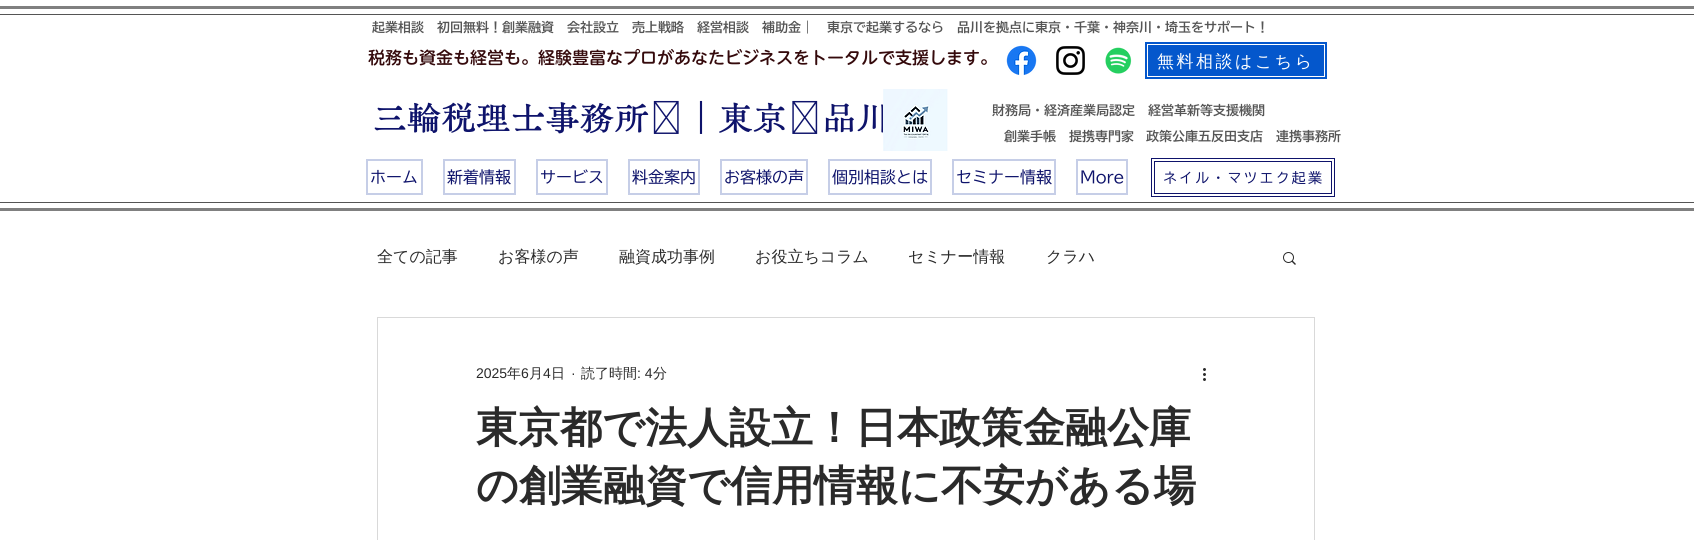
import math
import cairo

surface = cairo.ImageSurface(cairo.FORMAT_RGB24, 1694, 540)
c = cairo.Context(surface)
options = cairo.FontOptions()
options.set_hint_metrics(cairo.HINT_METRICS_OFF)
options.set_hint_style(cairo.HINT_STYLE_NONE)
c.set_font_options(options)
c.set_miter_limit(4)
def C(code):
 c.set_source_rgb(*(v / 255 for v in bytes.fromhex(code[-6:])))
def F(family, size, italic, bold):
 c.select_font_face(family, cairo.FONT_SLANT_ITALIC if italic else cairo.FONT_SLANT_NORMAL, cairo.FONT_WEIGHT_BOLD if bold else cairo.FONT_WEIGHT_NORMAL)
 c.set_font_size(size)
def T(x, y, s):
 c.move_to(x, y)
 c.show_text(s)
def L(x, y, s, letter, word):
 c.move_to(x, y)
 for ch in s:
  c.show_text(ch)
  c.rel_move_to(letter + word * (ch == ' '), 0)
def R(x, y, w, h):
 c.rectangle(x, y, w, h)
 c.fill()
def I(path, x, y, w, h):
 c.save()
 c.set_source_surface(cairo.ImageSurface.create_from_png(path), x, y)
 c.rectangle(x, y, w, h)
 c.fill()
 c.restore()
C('ffffff')
c.paint()
C('808080')
R(0,6,1694,3)
R(0,208,1694,3)
C('555555')
R(0,14,1694,1)
R(0,202,1694,1)
F('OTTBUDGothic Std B',13,0,1)
T(372,32,'起業相談　初回無料！創業融資　会社設立　売上戦略　経営相談　補助金｜ 東京で起業するなら　品川を拠点に東京・千葉・神奈川・埼玉をサポート！')
F('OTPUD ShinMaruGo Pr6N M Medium',17,0,0)
C('350a0c')
T(368,64,'税務も資金も経営も。経験豊富なプロがあなたビジネスをトータルで支援します。')
I('1.png',1006,45,31,30)
I('2.png',1056,46,29,29)
I('3.png',1105,47,27,27)
C('0457cc')
R(1145,42,182,37)
c.rectangle(1147.5,44.5,177,32)
C('ffffff')
c.set_line_width(1)
c.stroke()
F('WenQuanYi Zen Hei Medium',17,0,0)
L(1157,67,'無料相談はこちら',2.5,0)
F('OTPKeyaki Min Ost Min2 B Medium',33,0,0)
C('0e136b')
L(373,130,'三輪税理士事務所 ｜東京 品川',1.6,0)
I('4.png',883,89,65,62)
F('OTTBUDGothic Std B',13,0,1)
C('555555')
T(992,115,'財務局・経済産業局認定 経営革新等支援機関')
L(1004,141,'創業手帳　提携専門家 政策公庫五反田支店　連携事務所',0,-1)
c.rectangle(367,160,55,34)
C('c6cee7')
c.set_line_width(2)
c.stroke()
F('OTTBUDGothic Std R',16,0,0)
C('0e136b')
T(370,183,'ホーム')
c.rectangle(444,160,71,34)
C('c6cee7')
c.stroke()
C('0e136b')
T(447,183,'新着情報')
c.rectangle(537,160,70,34)
C('c6cee7')
c.stroke()
C('0e136b')
T(540,183,'サービス')
c.rectangle(629,160,70,34)
C('c6cee7')
c.stroke()
C('0e136b')
T(632,183,'料金案内')
c.rectangle(721,160,86,34)
C('c6cee7')
c.stroke()
C('0e136b')
T(724,183,'お客様の声')
c.rectangle(829,160,102,34)
C('c6cee7')
c.stroke()
C('0e136b')
T(832,183,'個別相談とは')
c.rectangle(953,160,102,34)
C('c6cee7')
c.stroke()
C('0e136b')
T(956,183,'セミナー情報')
c.rectangle(1077,160,50,34)
C('c6cee7')
c.stroke()
C('0e136b')
T(1080,183,'More')
c.rectangle(1151.5,158.5,183,38)
c.set_line_width(1)
c.stroke()
c.rectangle(1154.5,161.5,177,32)
c.stroke()
F('OTTBUDGothic Std R',14,0,0)
L(1163,183,'ネイル・マツエク起業',2.1,0)
F('WenQuanYi Zen Hei Medium',16,0,0)
C('2a2a2a')
T(377,262,'全ての記事')
T(498,262,'お客様の声')
T(619,262,'融資成功事例')
T(755,262,'お役立ちコラム')
T(908,262,'セミナー情報')
T(1046,262,'クラハ')
I('5.png',1283,252,13,13)
c.rectangle(377.5,317.5,937,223)
C('d9d9d9')
c.stroke()
F('Liberation Sans',14,0,0)
C('2a2a2a')
T(476,378,'2025')
F('WenQuanYi Zen Hei Medium',14,0,0)
T(507,378,'年')
F('Liberation Sans',14,0,0)
T(521,378,'6')
F('WenQuanYi Zen Hei Medium',14,0,0)
T(529,378,'月')
F('Liberation Sans',14,0,0)
T(543,378,'4')
F('WenQuanYi Zen Hei Medium',14,0,0)
T(551,378,'日')
F('Liberation Sans',14,0,0)
T(571,378,'·')
F('WenQuanYi Zen Hei Medium',14,0,0)
T(581,378,'読了時間')
F('Liberation Sans',14,0,0)
T(637,378,': 4')
F('WenQuanYi Zen Hei Medium',14,0,0)
T(653,378,'分')
I('6.png',1203,368,3,13)
F('WenQuanYi Zen Hei',42,0,1)
T(476,442,'東京都で法人設立！日本政策金融公庫')
T(476,500,'の創業融資で信用情報に不安がある場')
surface.write_to_png('o.png')
